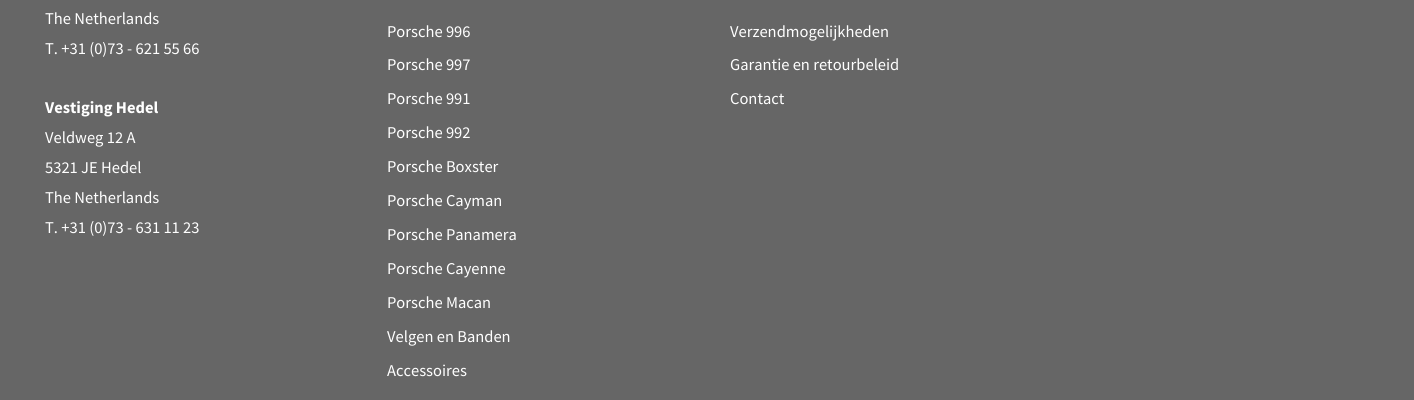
import math
import cairo

surface = cairo.ImageSurface(cairo.FORMAT_RGB24, 1414, 400)
c = cairo.Context(surface)
options = cairo.FontOptions()
options.set_hint_metrics(cairo.HINT_METRICS_OFF)
options.set_hint_style(cairo.HINT_STYLE_NONE)
c.set_font_options(options)
c.set_miter_limit(4)
def C(code):
 c.set_source_rgb(*(v / 255 for v in bytes.fromhex(code[-6:])))
def F(family, size, italic, bold):
 c.select_font_face(family, cairo.FONT_SLANT_ITALIC if italic else cairo.FONT_SLANT_NORMAL, cairo.FONT_WEIGHT_BOLD if bold else cairo.FONT_WEIGHT_NORMAL)
 c.set_font_size(size)
def T(x, y, s):
 c.move_to(x, y)
 c.show_text(s)
C('666666')
c.paint()
F('Source Sans Pro',16.5,0,0)
C('ffffff')
T(45,24,'The Netherlands')
T(45,54,'T. +31 (0)73 - 621 55 66')
F('Source Sans Pro',16.5,0,1)
T(45,113,'Vestiging Hedel')
F('Source Sans Pro',16.5,0,0)
T(45,143,'Veldweg 12 A')
T(45,173,'5321 JE Hedel')
T(45,203,'The Netherlands')
T(45,233,'T. +31 (0)73 - 631 11 23')
T(387,37,'Porsche 996')
T(387,70,'Porsche 997')
T(387,104,'Porsche 991')
T(387,138,'Porsche 992')
T(387,172,'Porsche Boxster')
T(387,206,'Porsche Cayman')
T(387,240,'Porsche Panamera')
T(387,274,'Porsche Cayenne')
T(387,308,'Porsche Macan')
T(387,342,'Velgen en Banden')
T(387,376,'Accessoires')
T(730,37,'Verzendmogelijkheden')
T(730,70,'Garantie en retourbeleid')
T(730,104,'Contact')
surface.write_to_png('o.png')
